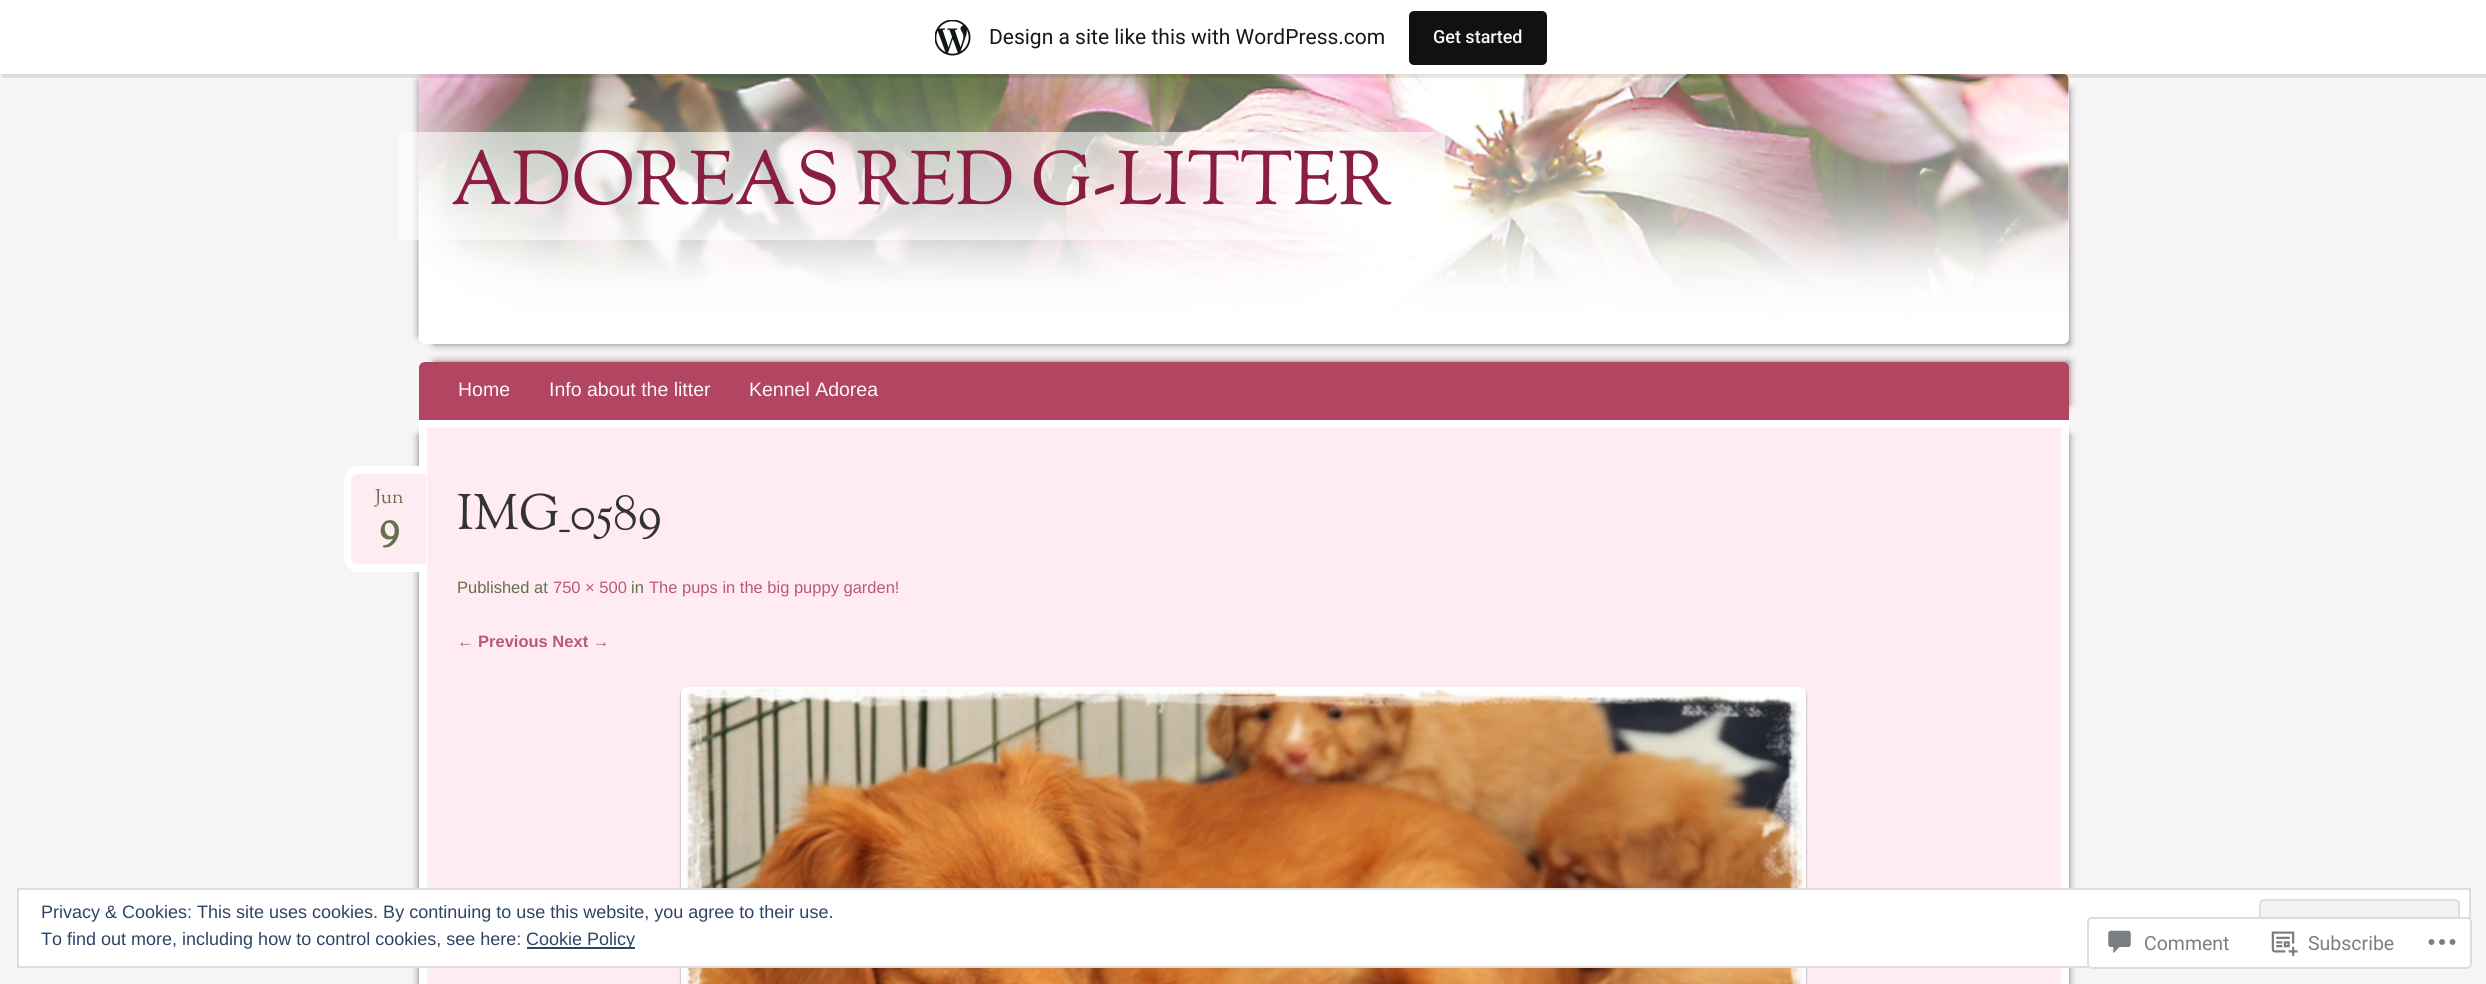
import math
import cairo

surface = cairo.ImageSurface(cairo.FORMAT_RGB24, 2486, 984)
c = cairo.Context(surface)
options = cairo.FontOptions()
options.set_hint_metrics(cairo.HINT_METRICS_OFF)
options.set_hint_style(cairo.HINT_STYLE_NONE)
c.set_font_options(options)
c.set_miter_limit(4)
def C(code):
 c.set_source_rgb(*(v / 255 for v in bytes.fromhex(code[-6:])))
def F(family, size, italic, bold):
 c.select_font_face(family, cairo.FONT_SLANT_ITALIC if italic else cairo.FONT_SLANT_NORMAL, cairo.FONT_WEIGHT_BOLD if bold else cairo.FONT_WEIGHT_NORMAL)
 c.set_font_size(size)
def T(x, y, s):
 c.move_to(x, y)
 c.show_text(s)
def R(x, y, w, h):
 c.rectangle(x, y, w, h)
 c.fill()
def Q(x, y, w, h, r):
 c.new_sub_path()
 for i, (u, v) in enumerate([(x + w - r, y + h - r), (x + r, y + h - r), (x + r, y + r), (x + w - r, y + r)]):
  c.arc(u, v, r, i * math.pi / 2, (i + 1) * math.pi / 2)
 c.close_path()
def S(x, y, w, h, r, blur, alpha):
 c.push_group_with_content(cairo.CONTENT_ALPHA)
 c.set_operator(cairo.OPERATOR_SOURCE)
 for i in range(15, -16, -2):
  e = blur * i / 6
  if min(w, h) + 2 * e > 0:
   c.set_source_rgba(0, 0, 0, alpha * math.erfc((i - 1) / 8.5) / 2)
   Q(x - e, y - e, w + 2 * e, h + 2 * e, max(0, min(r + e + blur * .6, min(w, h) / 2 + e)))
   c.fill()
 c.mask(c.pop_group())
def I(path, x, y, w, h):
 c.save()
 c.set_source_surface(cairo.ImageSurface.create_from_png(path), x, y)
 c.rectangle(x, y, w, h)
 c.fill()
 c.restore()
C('f6f4f4')
c.paint()
C('000000')
S(419,81,1635,255,0,4,.5)
S(434,89,1635,255,0,4,.5)
C('ffffff')
Q(419,74,1650,270,6)
c.fill()
I('2.png',418,74,1651,267)
C('000000')
S(0,2,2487,73,0,1.5,.05)
c.set_source_rgba(0,0,0,0.08)
c.new_path()
c.move_to(2,74)
c.line_to(2,78)
c.line_to(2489,78)
c.line_to(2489,5)
c.line_to(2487,5)
c.line_to(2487,74)
c.close_path()
c.fill()
C('ffffff')
R(0,0,2486,74)
I('1.png',935,20,36,36)
F('Roboto',21,0,0)
C('171717')
T(989,44,'Design a site like this with WordPress.com')
C('111111')
Q(1409,11,138,54,5)
c.fill()
F('Roboto Medium',18,0,0)
C('f6f7f7')
T(1433,43,'Get started')
c.set_source_rgba(1,1,1,0.6)
R(399,132,1046,108)
F('Sorts Mill Goudy',75,0,0)
C('891e42')
T(451,204,'ADOREAS RED G-LITTER')
C('000000')
S(434,362,1635,43,0,4,.5)
C('b14562')
c.new_path()
c.move_to(425,362)
c.line_to(2063,362)
c.curve_to(2066.5,362,2069,364.5,2069,368)
c.line_to(2069,420)
c.line_to(419,420)
c.line_to(419,368)
c.curve_to(419,364.5,421.5,362,425,362)
c.close_path()
c.fill()
F('Liberation Sans',19.5,0,0)
C('fff4f9')
T(458,396,'Home')
T(549,396,'Info about the litter')
T(749,396,'Kennel Adorea')
C('000000')
S(419,435,1635,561,0,4,.5)
S(434,435,1635,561,0,4,.5)
C('ffebf2')
c.rectangle(423,424,1642,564)
c.fill_preserve()
C('ffffff')
c.set_line_width(8)
c.stroke()
C('ffebf2')
c.new_path()
c.move_to(359,474)
c.line_to(426,474)
c.line_to(426,564)
c.line_to(359,564)
c.curve_to(354.5,564,351,560.5,351,556)
c.line_to(351,482)
c.curve_to(351,477.5,354.5,474,359,474)
c.close_path()
c.fill()
C('ffffff')
c.set_fill_rule(cairo.FILL_RULE_EVEN_ODD)
c.new_path()
c.move_to(358,466)
c.line_to(426,466)
c.line_to(426,572)
c.line_to(358,572)
c.curve_to(350,572,344,565,344,556)
c.line_to(344,482)
c.curve_to(344,473,350,466,358,466)
c.close_path()
c.move_to(358,474)
c.line_to(426,474)
c.line_to(426,564)
c.line_to(358,564)
c.curve_to(354,564,351,561,351,556)
c.line_to(351,482)
c.curve_to(351,477,354,474,358,474)
c.close_path()
c.fill()
F('Sorts Mill Goudy',19.5,0,0)
C('63724b')
T(375,503,'Jun')
F('Sorts Mill Goudy',42,0,1)
T(379,539,'9')
F('Sorts Mill Goudy',49.5,0,0)
C('333333')
T(457,529,'IMG_0589')
F('Liberation Sans',16.5,0,0)
C('63724b')
T(457,593,'Published at')
C('bb5974')
T(553,593,'750 × 500')
C('63724b')
T(631,593,'in')
C('bb5974')
T(649,593,'The pups in the big puppy garden!')
F('Liberation Sans',16.5,0,1)
T(457,647,'← Previous Next →')
C('000000')
S(681,689,1125,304,6,1,.4)
I('3.png',681,687,1125,297)
C('ffffff')
c.rectangle(18,889,2452,78)
c.fill_preserve()
C('dedede')
c.set_line_width(2)
c.stroke()
F('Liberation Sans',18,0,0)
C('2e4467')
T(41,918,'Privacy & Cookies: This site uses cookies. By continuing to use this website, you agree to their use.')
C('f3f3f3')
Q(2260,900,199,56,4)
c.fill_preserve()
C('dedede')
c.stroke()
C('2e4467')
T(41,945,'To find out more, including how to control cookies, see here:')
R(527,947,108,2)
T(526,945,'Cookie Policy')
c.set_source_rgba(1,1,1,0.98)
Q(2087,917,385,52,5)
c.fill()
Q(2088,918,383,50,4)
c.set_source_rgba(0.863,0.863,0.871,0.98)
c.stroke()
I('4.png',2108,930,23,24)
F('Roboto',19.5,0,0)
C('7b7f85')
T(2144,950,'Comment')
I('5.png',2271,931,27,25)
T(2308,950,'Subscribe')
I('6.png',2428,939,28,6)
surface.write_to_png('o.png')
